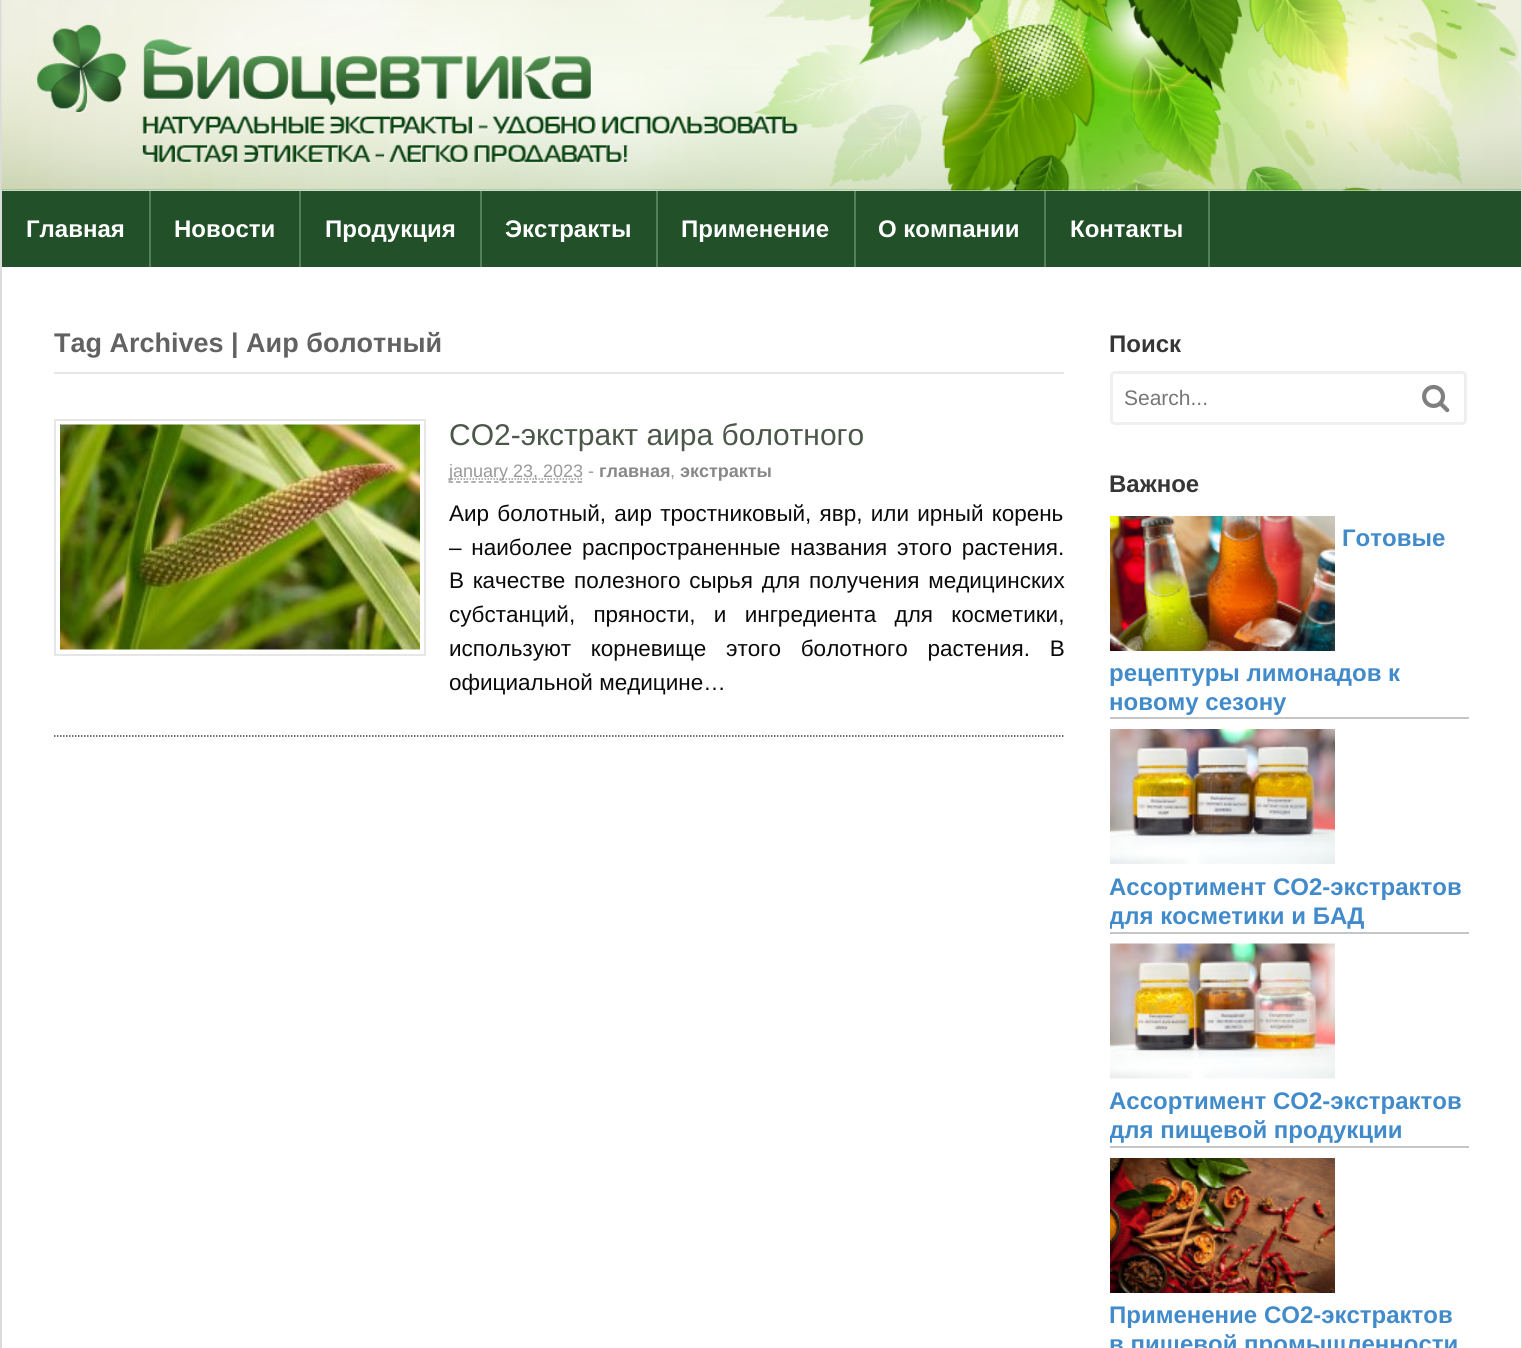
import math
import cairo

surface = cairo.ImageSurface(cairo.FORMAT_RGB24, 1522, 1348)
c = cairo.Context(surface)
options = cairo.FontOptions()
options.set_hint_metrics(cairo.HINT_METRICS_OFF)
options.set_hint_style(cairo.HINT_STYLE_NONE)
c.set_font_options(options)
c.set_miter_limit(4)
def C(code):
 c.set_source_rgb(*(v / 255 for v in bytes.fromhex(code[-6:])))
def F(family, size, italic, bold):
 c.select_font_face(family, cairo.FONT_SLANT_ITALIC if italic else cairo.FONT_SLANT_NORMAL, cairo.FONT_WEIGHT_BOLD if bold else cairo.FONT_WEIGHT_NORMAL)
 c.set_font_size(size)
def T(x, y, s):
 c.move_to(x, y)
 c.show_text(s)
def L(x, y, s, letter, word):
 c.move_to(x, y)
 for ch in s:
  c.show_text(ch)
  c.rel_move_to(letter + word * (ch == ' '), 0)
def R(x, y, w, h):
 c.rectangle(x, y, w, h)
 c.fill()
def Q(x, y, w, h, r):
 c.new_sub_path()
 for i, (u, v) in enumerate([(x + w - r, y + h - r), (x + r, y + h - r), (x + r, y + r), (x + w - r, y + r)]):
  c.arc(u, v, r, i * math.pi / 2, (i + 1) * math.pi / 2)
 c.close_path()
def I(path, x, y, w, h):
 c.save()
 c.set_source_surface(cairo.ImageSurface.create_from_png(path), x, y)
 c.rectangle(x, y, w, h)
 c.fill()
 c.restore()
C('ffffff')
c.paint()
C('dbdbdb')
R(1521,0,1,1348)
R(0,0,2,1348)
I('1.png',1,0,1520,191)
C('225129')
R(2,191,1519,76)
C('537f59')
R(149,191,2,76)
F('Liberation Sans',24,0,1)
C('ffffff')
T(26,237,'Главная')
C('537f59')
R(299,191,2,76)
C('ffffff')
T(174,237,'Новости')
C('537f59')
R(480,191,2,76)
C('ffffff')
T(325,237,'Продукция')
C('537f59')
R(656,191,2,76)
C('ffffff')
T(505,237,'Экстракты')
C('537f59')
R(854,191,2,76)
C('ffffff')
T(681,237,'Применение')
C('537f59')
R(1044,191,2,76)
C('ffffff')
T(878,237,'О компании')
C('537f59')
R(1208,191,2,76)
C('ffffff')
T(1070,237,'Контакты')
C('e6e6e6')
R(54,372,1010,2)
F('Liberation Sans',27,0,1)
C('626262')
T(54,352,'Tag Archives | Аир болотный')
c.rectangle(55,420,370,235)
C('e6e6e6')
c.stroke()
I('2.png',60,424,360,226)
F('Liberation Sans',30,0,0)
C('4b5849')
T(449,445,'СО2-экстракт аира болотного')
c.new_path()
c.move_to(448.5,479)
c.line_to(582.5,479)
C('999999')
c.set_line_width(1.5)
c.set_dash([1.5,1.5])
c.stroke()
F('Liberation Sans',18,0,0)
T(449,477,'january 23, 2023 -')
c.new_path()
c.move_to(448.5,482)
c.line_to(582,482)
c.set_dash([4.5,3.09])
c.stroke()
F('Liberation Sans',18,0,1)
C('888888')
T(599,477,'главная')
F('Liberation Sans',18,0,0)
C('999999')
T(670,477,',')
F('Liberation Sans',18,0,1)
C('888888')
T(680,477,'экстракты')
F('Liberation Sans',22.5,0,0)
C('0a0a0a')
L(449,521,'Аир болотный, аир тростниковый, явр, или ирный корень',0,2)
L(449,555,'– наиболее распространенные названия этого растения.',0,3.5)
L(449,588,'В качестве полезного сырья для получения медицинских',0,2.5)
L(449,622,'субстанций, пряности, и ингредиента для косметики,',0,12)
L(449,656,'используют корневище этого болотного растения. В',0,13.5)
T(449,690,'официальной медицине…')
c.new_path()
c.move_to(54,736)
c.line_to(1063.5,736)
C('474747')
c.set_dash([1.5,1.5])
c.stroke()
F('Liberation Sans',24,0,1)
C('363636')
T(1109,352,'Поиск')
Q(1111.5,372.5,354,51,3.5)
C('efefef')
c.set_line_width(3)
c.set_dash([])
c.stroke()
F('Liberation Sans',21,0,0)
C('777777')
T(1124,405,'Search...')
I('3.png',1422,384,28,29)
F('Liberation Sans',24,0,1)
C('363636')
T(1109,492,'Важное')
C('c6c5c5')
R(1110,717,359,2)
I('4.png',1110,516,225,135)
C('428bca')
T(1342,546,'Готовые')
T(1109,681,'рецептуры лимонадов к')
T(1109,710,'новому сезону')
C('c6c5c5')
R(1110,932,359,2)
I('5.png',1110,729,225,135)
C('428bca')
T(1109,895,'Ассортимент СО2-экстрактов')
c.save()
c.rectangle(1110,720,359,212)
c.clip()
T(1109,924,'для косметики и БАД')
c.restore()
C('c6c5c5')
R(1110,1146,359,2)
I('6.png',1110,943,225,136)
C('428bca')
T(1109,1109,'Ассортимент СО2-экстрактов')
c.save()
c.rectangle(1110,935,359,211)
c.clip()
T(1109,1138,'для пищевой продукции')
c.restore()
I('7.png',1110,1158,225,135)
T(1109,1323,'Применение СО2-экстрактов')
T(1109,1352,'в пищевой промышленности')
surface.write_to_png('o.png')
